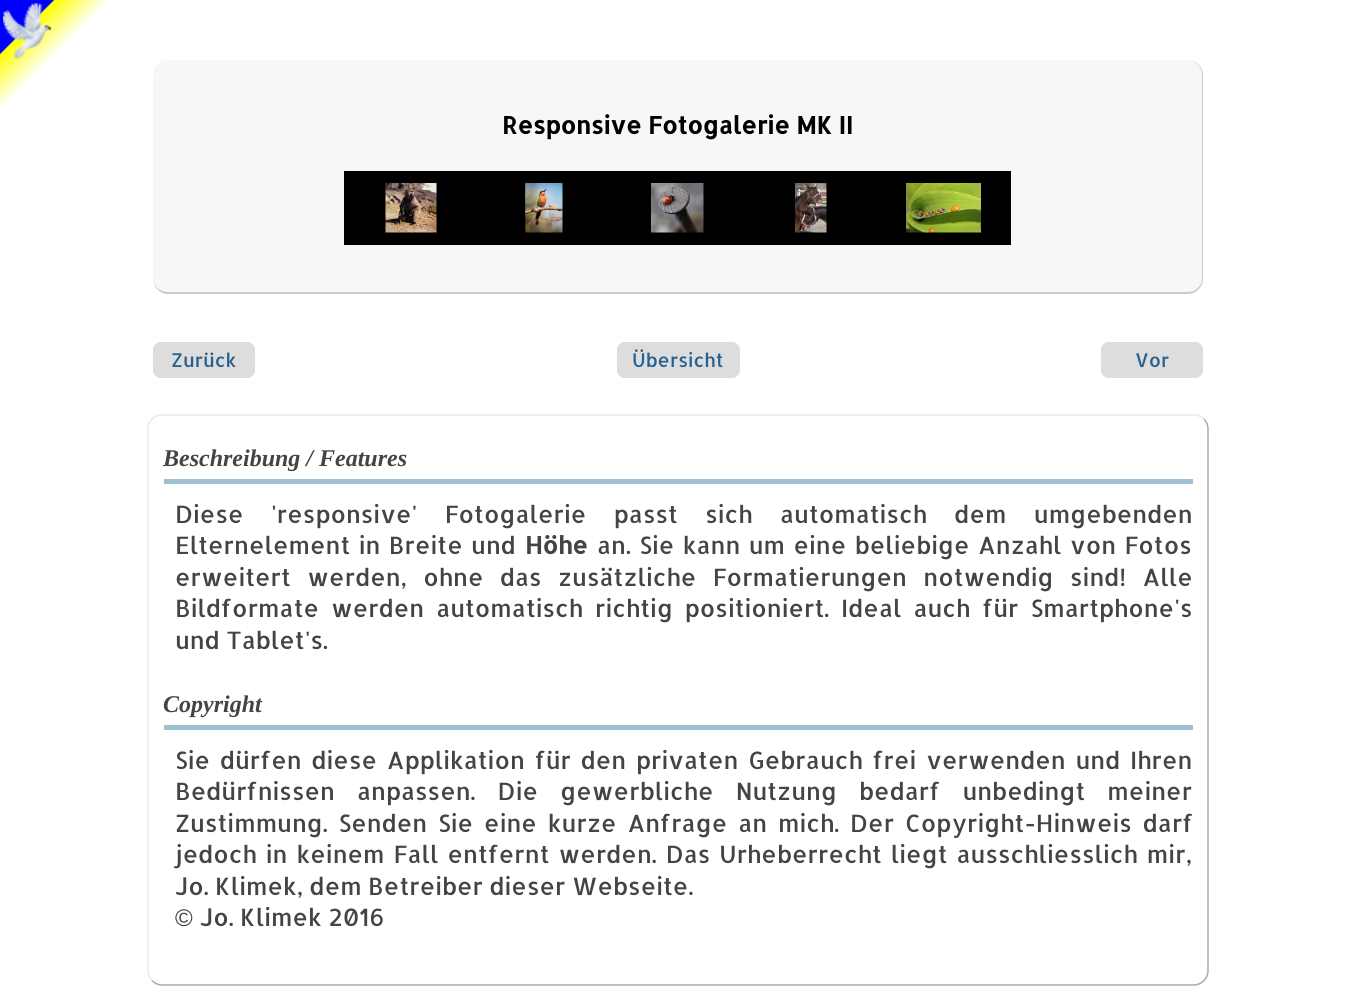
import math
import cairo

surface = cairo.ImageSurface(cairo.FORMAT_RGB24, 1355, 1006)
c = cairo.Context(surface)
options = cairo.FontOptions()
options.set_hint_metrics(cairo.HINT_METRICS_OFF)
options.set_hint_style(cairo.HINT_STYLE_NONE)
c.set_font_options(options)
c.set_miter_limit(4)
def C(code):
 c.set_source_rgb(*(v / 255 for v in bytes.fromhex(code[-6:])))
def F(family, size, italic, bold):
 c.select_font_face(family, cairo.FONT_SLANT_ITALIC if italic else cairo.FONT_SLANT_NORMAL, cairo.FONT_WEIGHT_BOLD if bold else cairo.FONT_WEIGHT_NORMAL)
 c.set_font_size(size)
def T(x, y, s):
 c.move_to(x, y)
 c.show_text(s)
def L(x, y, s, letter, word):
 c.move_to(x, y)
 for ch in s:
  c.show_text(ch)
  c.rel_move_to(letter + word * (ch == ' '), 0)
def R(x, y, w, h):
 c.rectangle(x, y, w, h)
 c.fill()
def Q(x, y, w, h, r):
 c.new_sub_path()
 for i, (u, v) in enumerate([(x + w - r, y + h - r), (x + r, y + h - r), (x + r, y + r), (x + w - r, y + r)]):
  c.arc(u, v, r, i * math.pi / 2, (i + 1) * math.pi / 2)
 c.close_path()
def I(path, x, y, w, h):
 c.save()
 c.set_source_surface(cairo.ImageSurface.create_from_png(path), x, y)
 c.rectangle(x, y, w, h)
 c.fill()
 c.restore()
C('ffffff')
c.paint()
I('1.png',0,0,109,109)
C('f7f7f7')
Q(153,60,1050,234,15)
c.fill()
C('cccccc')
c.set_fill_rule(cairo.FILL_RULE_EVEN_ODD)
c.new_path()
c.move_to(168,60)
c.line_to(1188,60)
c.curve_to(1196,60,1203,67,1203,75)
c.line_to(1203,279)
c.curve_to(1203,287,1196,294,1188,294)
c.line_to(168,294)
c.curve_to(160,294,153,287,153,279)
c.line_to(153,75)
c.curve_to(153,67,160,60,168,60)
c.close_path()
c.move_to(168,60)
c.line_to(1188,60)
c.curve_to(1195,60,1202,67,1202,75)
c.line_to(1202,279)
c.curve_to(1202,286,1195,292,1188,292)
c.line_to(168,292)
c.curve_to(160,292,153,286,153,279)
c.line_to(153,75)
c.curve_to(153,67,160,60,168,60)
c.close_path()
c.fill()
F('Allerta',24,0,1)
C('000000')
T(502,134,'Responsive Fotogalerie MK II')
R(344,171,667,74)
I('2.png',385,183,52,50)
I('3.png',525,183,38,50)
I('4.png',651,183,53,50)
I('5.png',795,183,32,50)
I('6.png',906,183,75,50)
C('dddddd')
Q(153,342,102,36,8)
c.fill()
F('Allerta',19,0,0)
C('246090')
T(171,367,'Zurück')
C('dddddd')
Q(617,342,123,36,8)
c.fill()
C('246090')
T(632,367,'Übersicht')
C('dddddd')
Q(1101,342,102,36,8)
c.fill()
C('246090')
T(1135,367,'Vor')
c.new_path()
c.move_to(1204,419)
c.curve_to(1206.5,421.5,1208,425,1208,429)
c.line_to(1208,970.5)
c.curve_to(1208,974.5,1206.5,978,1204,980.5)
c.curve_to(1201.5,983,1198,985,1194,985)
c.line_to(162,985)
c.curve_to(158,985,154.5,983,152,980.5)
C('aaaaaa')
c.set_line_width(1.5)
c.stroke()
c.new_path()
c.move_to(152,980.5)
c.curve_to(149.5,978,148,974.5,148,970.5)
c.line_to(148,429)
c.curve_to(148,425,149.5,421.5,152,419)
c.curve_to(154.5,416.5,158,415,162,415)
c.line_to(1194,415)
c.curve_to(1198,415,1201.5,416.5,1204,419)
C('e8e8e8')
c.stroke()
C('9fc0d0')
R(164,479,1029,5)
F('Liberation Serif',24,1,1)
C('444444')
T(163,466,'Beschreibung / Features')
F('Allerta',24,0,0)
L(175,523,'Diese \'responsive\' Fotogalerie passt sich automatisch dem umgebenden',0,21)
L(175,554,'Elternelement in Breite und',0,2)
F('Allerta',24,0,1)
T(525,554,'Höhe')
F('Allerta',24,0,0)
L(597,554,'an. Sie kann um eine beliebige Anzahl von Fotos',0,2)
L(175,586,'erweitert werden, ohne das zusätzliche Formatierungen notwendig sind! Alle',0,10)
L(175,617,'Bildformate werden automatisch richtig positioniert. Ideal auch für Smartphone\'s',0,5.5)
T(175,649,'und Tablet\'s.')
C('9fc0d0')
R(164,725,1029,5)
F('Liberation Serif',24,1,1)
C('444444')
T(163,712,'Copyright')
F('Allerta',24,0,0)
L(175,769,'Sie dürfen diese Applikation für den privaten Gebrauch frei verwenden und Ihren',0,3.4)
L(175,800,'Bedürfnissen anpassen. Die gewerbliche Nutzung bedarf unbedingt meiner',0,15.75)
L(175,832,'Zustimmung. Senden Sie eine kurze Anfrage an mich. Der Copyright-Hinweis darf',0,4.5)
L(175,863,'jedoch in keinem Fall entfernt werden. Das Urheberrecht liegt ausschliesslich mir,',0,2.6)
T(175,895,'Jo. Klimek, dem Betreiber dieser Webseite.')
F('Liberation Sans',24,0,0)
T(175,926,'©')
F('Allerta',24,0,0)
T(200,926,'Jo. Klimek 2016')
surface.write_to_png('o.png')
